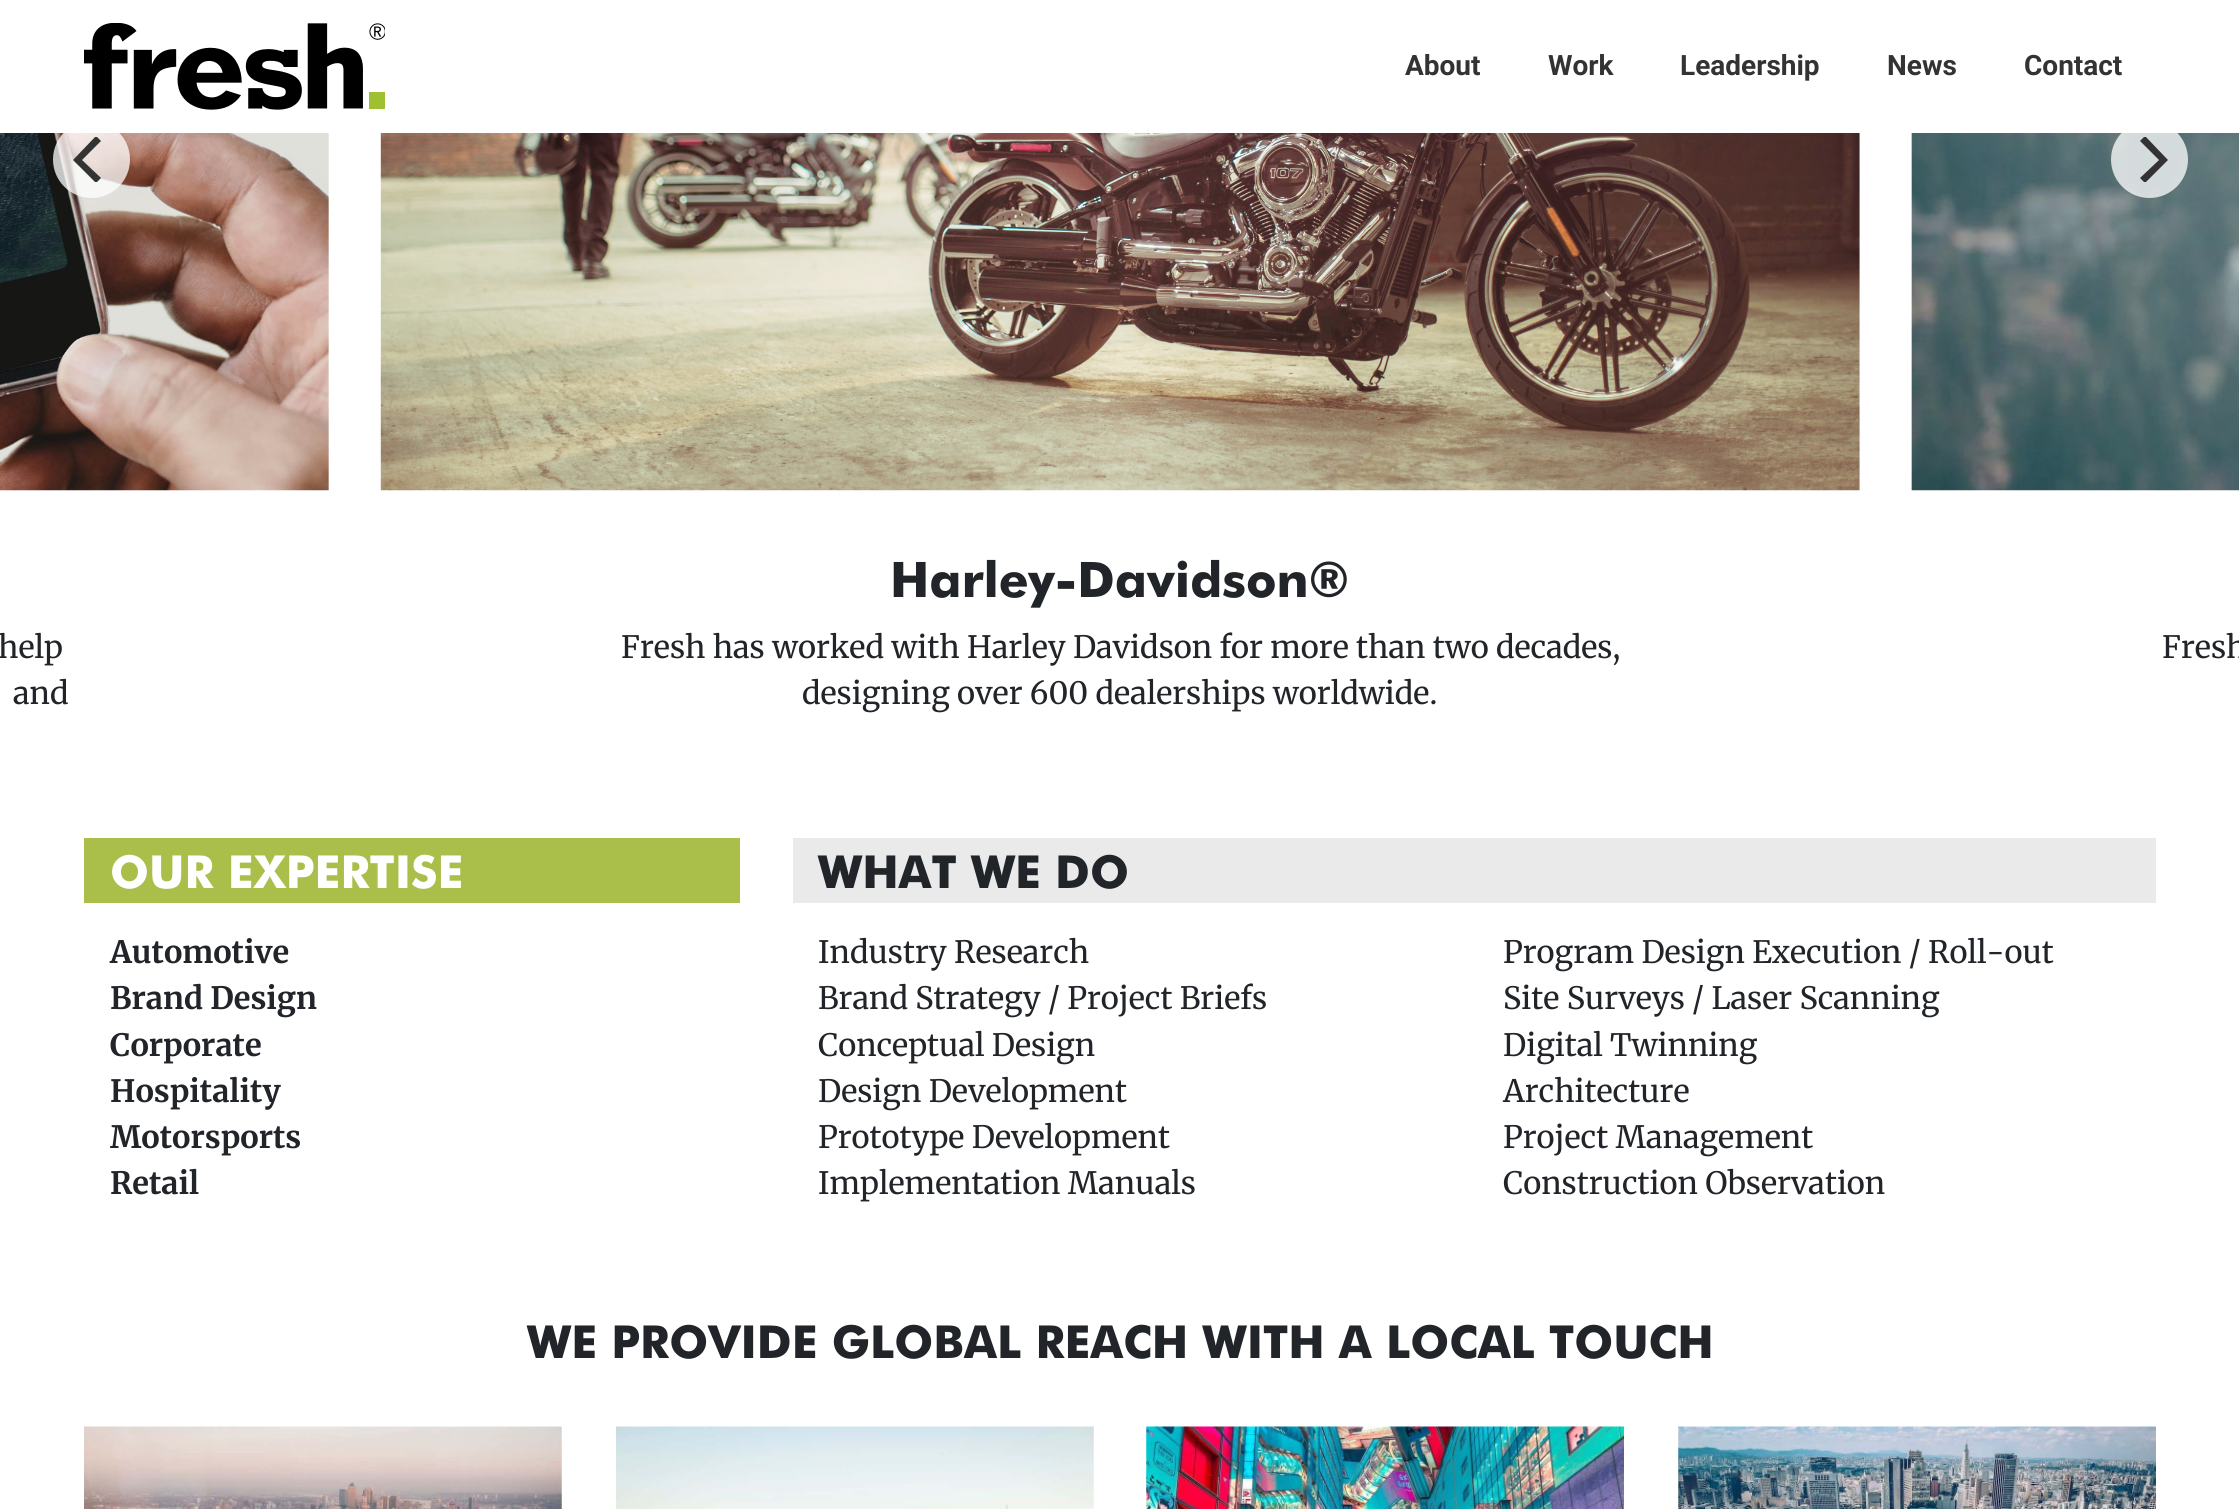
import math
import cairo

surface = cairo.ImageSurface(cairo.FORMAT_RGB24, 2239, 1509)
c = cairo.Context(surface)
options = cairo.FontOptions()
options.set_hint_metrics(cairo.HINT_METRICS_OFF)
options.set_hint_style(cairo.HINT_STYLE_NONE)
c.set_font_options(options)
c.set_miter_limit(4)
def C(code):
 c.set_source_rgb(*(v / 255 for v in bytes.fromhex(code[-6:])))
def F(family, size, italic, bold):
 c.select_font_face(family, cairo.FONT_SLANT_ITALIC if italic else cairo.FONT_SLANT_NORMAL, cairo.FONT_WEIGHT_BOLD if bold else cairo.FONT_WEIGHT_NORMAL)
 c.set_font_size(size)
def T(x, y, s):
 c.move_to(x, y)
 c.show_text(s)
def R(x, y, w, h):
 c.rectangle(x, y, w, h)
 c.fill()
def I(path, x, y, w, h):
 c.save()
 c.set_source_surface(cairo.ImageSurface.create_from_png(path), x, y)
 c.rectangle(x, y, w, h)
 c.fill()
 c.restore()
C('ffffff')
c.paint()
I('1.png',84,23,301,87)
F('Roboto',28,0,1)
C('333333')
T(1405,75,'About')
T(1548,75,'Work')
T(1680,75,'Leadership')
T(1887,75,'News')
T(2024,75,'Contact')
I('2.png',0,133,329,358)
c.set_source_rgba(1,1,1,0.75)
c.arc(91.5,159.5,38.5,0,2 * math.pi)
c.fill()
c.save()
c.rectangle(68,137,46,45)
c.clip()
C('333333')
c.new_path()
c.move_to(73,160)
c.line_to(96,183)
c.line_to(101,178)
c.line_to(82,160)
c.line_to(101,141)
c.line_to(96,136)
c.close_path()
c.fill()
c.restore()
I('4.png',1911,133,328,358)
c.arc(2149.5,159.5,38.5,0,2 * math.pi)
c.fill()
c.save()
c.rectangle(2126,137,46,45)
c.clip()
C('333333')
c.new_path()
c.move_to(2168,160)
c.line_to(2145,136)
c.line_to(2140,141)
c.line_to(2159,160)
c.line_to(2140,178)
c.line_to(2145,183)
c.close_path()
c.fill()
c.restore()
F('Merriweather',30.8,0,0)
C('212529')
T(-2,658,'help')
T(13,704,'and')
I('3.png',380,133,1480,358)
F('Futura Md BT',49,0,1)
T(890,597,'Harley-Davidson®')
F('Merriweather',30.8,0,0)
T(621,658,'Fresh has worked with Harley Davidson for more than two decades,')
T(802,704,'designing over 600 dealerships worldwide.')
T(2162,658,'Fresh')
C('a9bf49')
R(84,838,656,65)
F('Futura Md BT',45.5,0,1)
C('ffffff')
T(110,888,'OUR EXPERTISE')
F('Merriweather',30.8,0,1)
C('212529')
T(110,963,'Automotive')
T(110,1009,'Brand Design')
T(110,1056,'Corporate')
T(110,1102,'Hospitality')
T(110,1148,'Motorsports')
T(110,1194,'Retail')
C('eaeaea')
R(793,838,1363,65)
F('Futura Md BT',45.5,0,1)
C('212529')
T(818,888,'WHAT WE DO')
F('Merriweather',30.8,0,0)
T(818,963,'Industry Research')
T(1503,963,'Program Design Execution / Roll-out')
T(818,1009,'Brand Strategy / Project Briefs')
T(1503,1009,'Site Surveys / Laser Scanning')
T(818,1056,'Conceptual Design')
T(1503,1056,'Digital Twinning')
T(818,1102,'Design Development')
T(1503,1102,'Architecture')
T(818,1148,'Prototype Development')
T(1503,1148,'Project Management')
T(818,1194,'Implementation Manuals')
T(1503,1194,'Construction Observation')
F('Futura Md BT',45.5,0,1)
T(527,1358,'WE PROVIDE GLOBAL REACH WITH A LOCAL TOUCH')
I('5.png',84,1426,478,83)
I('6.png',616,1426,478,83)
I('7.png',1146,1426,478,83)
I('8.png',1678,1426,478,83)
surface.write_to_png('o.png')
